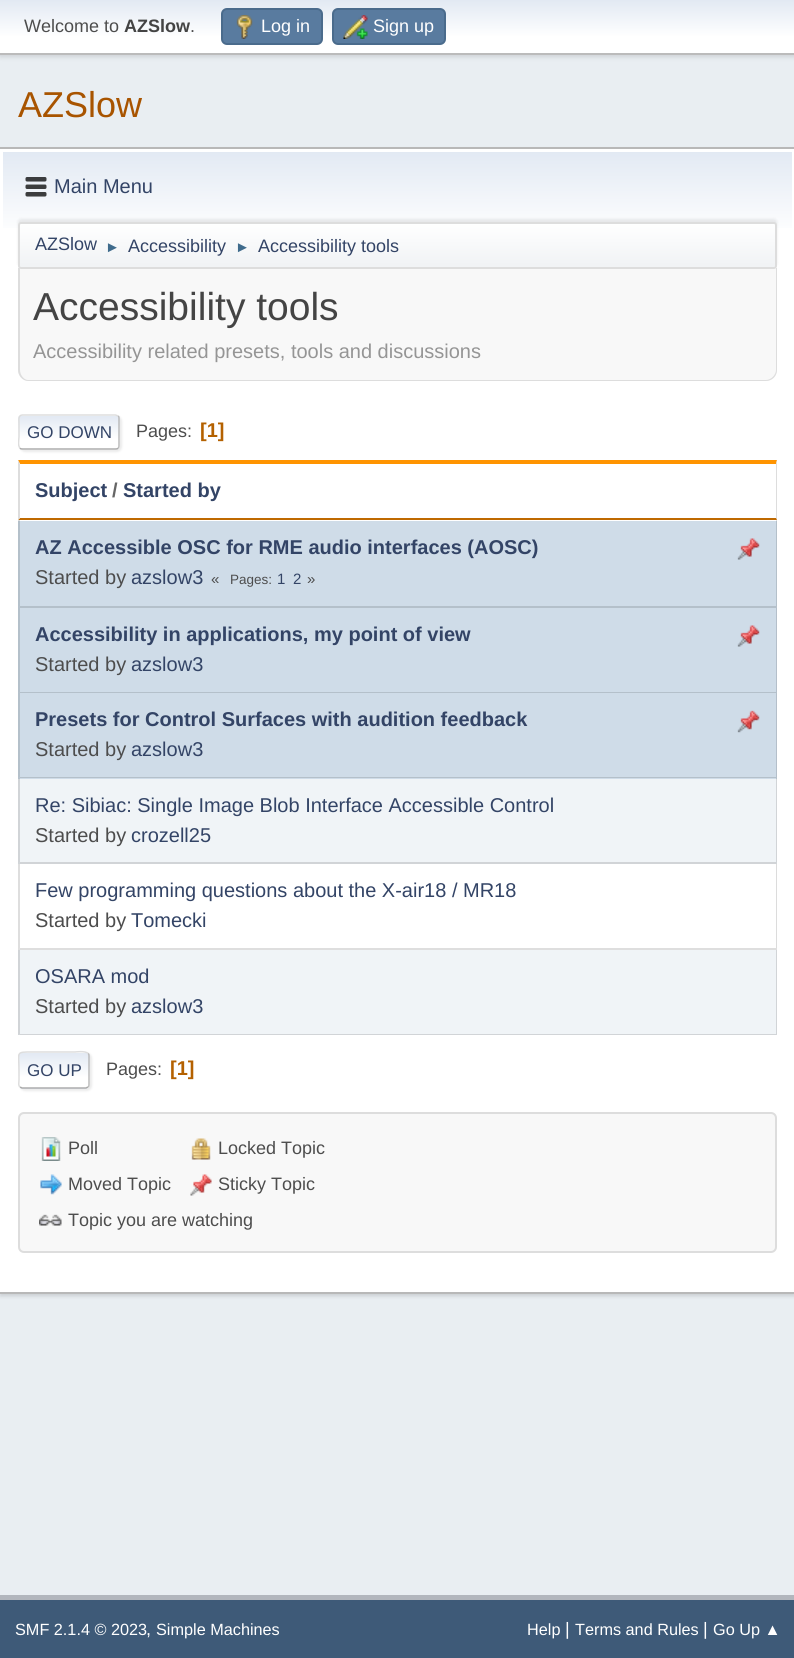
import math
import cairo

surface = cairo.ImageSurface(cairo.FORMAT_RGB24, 794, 1658)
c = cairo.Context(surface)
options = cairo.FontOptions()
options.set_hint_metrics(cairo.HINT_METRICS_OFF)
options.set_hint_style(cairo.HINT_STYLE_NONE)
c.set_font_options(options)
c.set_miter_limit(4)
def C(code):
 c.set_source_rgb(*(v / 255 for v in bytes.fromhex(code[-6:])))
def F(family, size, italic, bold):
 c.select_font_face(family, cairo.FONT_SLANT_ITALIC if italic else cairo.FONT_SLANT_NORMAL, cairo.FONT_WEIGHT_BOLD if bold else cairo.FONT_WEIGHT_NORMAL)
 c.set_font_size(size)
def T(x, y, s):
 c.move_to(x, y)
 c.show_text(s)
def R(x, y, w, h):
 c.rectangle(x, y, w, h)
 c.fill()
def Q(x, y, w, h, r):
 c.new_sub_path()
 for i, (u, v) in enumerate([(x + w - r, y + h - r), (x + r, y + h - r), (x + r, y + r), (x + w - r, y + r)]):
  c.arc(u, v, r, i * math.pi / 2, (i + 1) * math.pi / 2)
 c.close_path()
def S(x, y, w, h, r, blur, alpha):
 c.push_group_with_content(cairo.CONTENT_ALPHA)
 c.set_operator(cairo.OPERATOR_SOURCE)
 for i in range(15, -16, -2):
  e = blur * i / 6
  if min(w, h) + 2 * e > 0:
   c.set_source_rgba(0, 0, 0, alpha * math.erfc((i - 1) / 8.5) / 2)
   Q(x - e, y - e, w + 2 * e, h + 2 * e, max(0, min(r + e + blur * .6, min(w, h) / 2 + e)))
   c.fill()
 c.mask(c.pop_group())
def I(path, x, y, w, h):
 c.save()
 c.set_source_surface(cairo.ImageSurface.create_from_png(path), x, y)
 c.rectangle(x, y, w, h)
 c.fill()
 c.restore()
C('e9eef2')
c.paint()
C('000000')
S(0,2,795,54,0,3,.16)
gradient = cairo.LinearGradient(398,0,398,53)
gradient.add_color_stop_rgba(0,0.886,0.914,0.953,1)
gradient.add_color_stop_rgba(.7,1,1,1,1)
c.set_source(gradient)
R(0,0,794,53)
C('bbbbbb')
R(0,53,794,2)
F('Liberation Sans',18,0,0)
C('4d4d4d')
T(24,32,'Welcome to')
F('Liberation Sans',18,0,1)
C('444444')
T(124,32,'AZSlow')
F('Liberation Sans',18,0,0)
C('4d4d4d')
T(190,32,'.')
C('597b9f')
Q(222,9,100,35,5)
c.fill_preserve()
C('4a6b8c')
c.stroke()
I('1.png',236,15,17,24)
C('ffffff')
T(261,32,'Log in')
C('597b9f')
Q(333,9,112,35,5)
c.fill_preserve()
C('4a6b8c')
c.stroke()
I('2.png',343,15,25,24)
C('ffffff')
T(373,32,'Sign up')
F('Liberation Sans',36,0,0)
C('a85400')
T(18,117,'AZSlow')
C('000000')
S(0,150,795,1146,0,2,.14)
C('ffffff')
R(0,149,794,1143)
C('b8b8b8')
R(0,147,794,2)
R(0,1292,794,2)
gradient = cairo.LinearGradient(398,151,398,272)
gradient.add_color_stop_rgba(0,0.886,0.914,0.953,1)
gradient.add_color_stop_rgba(.7,1,1,1,1)
c.set_source(gradient)
R(3,152,789,76)
I('3.png',25,177,22,20)
F('Liberation Sans',20,0,0)
C('334466')
T(54,193,'Main Menu')
C('000000')
S(18,219,759,47,3,1.5,.08)
c.save()
Q(18,222,759,47,3)
c.clip()
gradient = cairo.LinearGradient(398,223,398,267)
gradient.add_color_stop_rgba(0,1,1,1,1)
gradient.add_color_stop_rgba(.95,0.945,0.953,0.961,1)
c.set_source(gradient)
R(18,224,759,43)
c.restore()
Q(19,223,757,45,2)
C('dddddd')
c.stroke()
F('Liberation Sans',18,0,0)
C('334466')
T(35,250,'AZSlow')
F('Liberation Sans',15,0,0)
C('3f6b8c')
T(105,252,'►')
F('Liberation Sans',18,0,0)
C('334466')
T(128,252,'Accessibility')
F('Liberation Sans',15,0,0)
C('3f6b8c')
T(235,252,'►')
F('Liberation Sans',18,0,0)
C('334466')
T(258,252,'Accessibility tools')
C('f8f8f8')
c.new_path()
c.move_to(18,269)
c.line_to(777,269)
c.line_to(777,370)
c.curve_to(777,376,772,381,766,381)
c.line_to(29,381)
c.curve_to(23,381,18,376,18,370)
c.close_path()
c.fill()
C('dddddd')
c.set_fill_rule(cairo.FILL_RULE_EVEN_ODD)
c.new_path()
c.move_to(18,268)
c.line_to(777,268)
c.line_to(777,370)
c.curve_to(777,376,772,381,766,381)
c.line_to(28,381)
c.curve_to(23,381,18,376,18,370)
c.close_path()
c.move_to(20,268)
c.line_to(776,268)
c.line_to(776,370)
c.curve_to(776,375,771,380,766,380)
c.line_to(28,380)
c.curve_to(24,380,20,375,20,370)
c.close_path()
c.fill()
F('Liberation Sans',39,0,0)
C('444444')
T(33,320,'Accessibility tools')
F('Liberation Sans',20,0,0)
C('959595')
T(33,358,'Accessibility related presets, tools and discussions')
C('dddddd')
S(20,416,102,36,5,1,.57)
C('ffffff')
Q(18,414,102,36,5)
c.fill()
c.save()
c.set_fill_rule(cairo.FILL_RULE_WINDING)
Q(18,414,102,36,5)
c.clip()
gradient = cairo.LinearGradient(69,416,69,449)
gradient.add_color_stop_rgba(0,0.886,0.914,0.953,1)
gradient.add_color_stop_rgba(.7,1,1,1,1)
c.set_source(gradient)
R(18,416,102,33)
c.restore()
c.new_path()
c.move_to(118,416)
c.curve_to(119,416.5,119,417.5,119,418.5)
c.line_to(119,445.5)
c.curve_to(119,446.5,119,447.5,118,448)
C('bbbbbb')
c.set_line_width(1.5)
c.stroke()
c.new_path()
c.move_to(118,448)
c.curve_to(117.5,449,116.5,449,115.5,449)
c.line_to(22.5,449)
c.curve_to(21.5,449,20.5,449,20,448)
C('aaaaaa')
c.stroke()
c.save()
c.set_fill_rule(cairo.FILL_RULE_WINDING)
c.rectangle(18,404,759,57)
c.clip()
c.new_path()
c.move_to(20,448)
c.curve_to(17.5,445.5,19,439.5,19,436.5)
c.line_to(19,423)
c.curve_to(19,420,18,415,22.5,415)
c.line_to(115.5,415)
c.line_to(118,416)
C('dddddd')
c.stroke()
c.restore()
F('Liberation Sans',17,0,0)
C('334466')
T(27,438,'GO DOWN')
F('Liberation Sans',18,0,0)
C('4d4d4d')
T(136,437,'Pages:')
F('Liberation Sans',20,0,1)
C('b46100')
T(200,437,'[1]')
C('ff9400')
c.set_fill_rule(cairo.FILL_RULE_WINDING)
c.new_path()
c.move_to(18,460)
c.line_to(777,460)
c.line_to(776,464)
c.line_to(20,464)
c.close_path()
c.fill()
C('dddddd')
c.new_path()
c.move_to(777,460)
c.line_to(777,520)
c.line_to(776,518)
c.line_to(776,464)
c.close_path()
c.fill()
C('bf6900')
c.new_path()
c.move_to(777,520)
c.line_to(18,520)
c.line_to(20,518)
c.line_to(776,518)
c.close_path()
c.fill()
C('dddddd')
c.new_path()
c.move_to(18,520)
c.line_to(18,460)
c.line_to(20,464)
c.line_to(20,518)
c.close_path()
c.fill()
C('334466')
T(35,497,'Subject')
C('666666')
T(112,497,'/')
C('334466')
T(123,497,'Started by')
C('cfdce8')
R(18,521,759,258)
c.set_source_rgba(0,0,0,0.13)
c.new_path()
c.move_to(777,520)
c.line_to(777,608)
c.line_to(776,606)
c.line_to(776,520)
c.close_path()
c.fill()
c.new_path()
c.move_to(777,608)
c.line_to(18,608)
c.line_to(20,606)
c.line_to(776,606)
c.close_path()
c.fill()
c.new_path()
c.move_to(18,608)
c.line_to(18,520)
c.line_to(20,520)
c.line_to(20,606)
c.close_path()
c.fill()
C('334466')
T(35,554,'AZ Accessible OSC for RME audio interfaces (AOSC)')
I('4.png',737,538,23,22)
F('Liberation Sans',20,0,0)
C('4d4d4d')
T(35,584,'Started by')
C('334466')
T(131,584,'azslow3')
F('Liberation Sans',15,0,0)
C('4d4d4d')
T(211,584,'«')
F('Liberation Sans',13.5,0,0)
T(230,584,'Pages:')
F('Liberation Sans',15,0,0)
C('334466')
T(277,584,'1')
T(293,584,'2')
C('4d4d4d')
T(307,584,'»')
C('b4bfca')
c.new_path()
c.move_to(777,608)
c.line_to(777,693)
c.line_to(776,692)
c.line_to(776,608)
c.close_path()
c.fill()
c.set_source_rgba(0,0,0,0.13)
c.new_path()
c.move_to(777,693)
c.line_to(18,693)
c.line_to(20,692)
c.line_to(776,692)
c.close_path()
c.fill()
c.new_path()
c.move_to(18,693)
c.line_to(18,608)
c.line_to(20,608)
c.line_to(20,692)
c.close_path()
c.fill()
F('Liberation Sans',20,0,1)
C('334466')
T(35,641,'Accessibility in applications, my point of view')
I('4.png',737,625,23,22)
F('Liberation Sans',20,0,0)
C('4d4d4d')
T(35,671,'Started by')
C('334466')
T(131,671,'azslow3')
C('b4bfca')
c.new_path()
c.move_to(777,693)
c.line_to(777,778)
c.line_to(776,777)
c.line_to(776,693)
c.close_path()
c.fill()
c.set_source_rgba(0,0,0,0.13)
c.new_path()
c.move_to(777,778)
c.line_to(18,778)
c.line_to(20,777)
c.line_to(776,777)
c.close_path()
c.fill()
c.new_path()
c.move_to(18,778)
c.line_to(18,693)
c.line_to(20,693)
c.line_to(20,777)
c.close_path()
c.fill()
F('Liberation Sans',20,0,1)
C('334466')
T(35,726,'Presets for Control Surfaces with audition feedback')
I('5.png',737,710,23,23)
F('Liberation Sans',20,0,0)
C('4d4d4d')
T(35,756,'Started by')
C('334466')
T(131,756,'azslow3')
C('f0f4f7')
R(18,779,759,85)
c.set_source_rgba(0,0,0,0.13)
c.new_path()
c.move_to(777,778)
c.line_to(777,864)
c.line_to(776,862)
c.line_to(776,778)
c.close_path()
c.fill()
c.new_path()
c.move_to(777,864)
c.line_to(18,864)
c.line_to(20,862)
c.line_to(776,862)
c.close_path()
c.fill()
c.new_path()
c.move_to(18,864)
c.line_to(18,778)
c.line_to(20,778)
c.line_to(20,862)
c.close_path()
c.fill()
C('334466')
T(35,812,'Re: Sibiac: Single Image Blob Interface Accessible Control')
C('4d4d4d')
T(35,842,'Started by')
C('334466')
T(131,842,'crozell25')
C('dcdcdc')
c.new_path()
c.move_to(777,864)
c.line_to(777,950)
c.line_to(776,948)
c.line_to(776,864)
c.close_path()
c.fill()
c.set_source_rgba(0,0,0,0.13)
c.new_path()
c.move_to(777,950)
c.line_to(18,950)
c.line_to(20,948)
c.line_to(776,948)
c.close_path()
c.fill()
c.new_path()
c.move_to(18,950)
c.line_to(18,864)
c.line_to(20,864)
c.line_to(20,948)
c.close_path()
c.fill()
C('334466')
T(35,897,'Few programming questions about the X-air18 / MR18')
C('4d4d4d')
T(35,927,'Started by')
C('334466')
T(131,927,'Tomecki')
C('f0f4f7')
R(18,950,759,85)
C('d1d4d7')
c.new_path()
c.move_to(777,950)
c.line_to(777,1035)
c.line_to(776,1034)
c.line_to(776,950)
c.close_path()
c.fill()
c.set_source_rgba(0,0,0,0.13)
c.new_path()
c.move_to(777,1035)
c.line_to(18,1035)
c.line_to(20,1034)
c.line_to(776,1034)
c.close_path()
c.fill()
c.new_path()
c.move_to(18,1035)
c.line_to(18,950)
c.line_to(20,950)
c.line_to(20,1034)
c.close_path()
c.fill()
C('334466')
T(35,983,'OSARA mod')
C('4d4d4d')
T(35,1013,'Started by')
C('334466')
T(131,1013,'azslow3')
C('dddddd')
S(20,1053,72,38,5,1,.57)
C('ffffff')
Q(18,1052,72,37,5)
c.fill()
c.save()
Q(18,1052,72,37,5)
c.clip()
gradient = cairo.LinearGradient(54,1053,54,1088)
gradient.add_color_stop_rgba(0,0.886,0.914,0.953,1)
gradient.add_color_stop_rgba(.7,1,1,1,1)
c.set_source(gradient)
R(18,1053,72,35)
gradient = cairo.LinearGradient(54,1088,54,1122)
gradient.add_color_stop_rgba(0,0.886,0.914,0.953,1)
gradient.add_color_stop_rgba(.7,1,1,1,1)
c.set_source(gradient)
R(18,1088,72,1)
c.restore()
c.new_path()
c.move_to(88,1053.5)
c.curve_to(89,1054,89,1055,89,1056)
c.line_to(89,1084.5)
c.curve_to(89,1085.5,89,1086.5,88,1087)
C('bbbbbb')
c.stroke()
c.new_path()
c.move_to(88,1087)
c.line_to(86,1088)
c.line_to(22,1088)
c.line_to(20,1087)
C('aaaaaa')
c.stroke()
c.save()
c.rectangle(18,1041,759,59)
c.clip()
c.new_path()
c.move_to(20,1087)
c.curve_to(18,1085.5,19,1082,19,1080)
c.line_to(19,1070)
c.curve_to(19,1051.5,15,1052,33,1052)
c.line_to(75,1052)
c.curve_to(75,1052,85.5,1050.5,88,1053.5)
C('dddddd')
c.stroke()
c.restore()
F('Liberation Sans',17,0,0)
C('334466')
T(27,1076,'GO UP')
F('Liberation Sans',18,0,0)
C('4d4d4d')
T(106,1075,'Pages:')
F('Liberation Sans',20,0,1)
C('b46100')
T(170,1075,'[1]')
C('f8f8f8')
Q(19,1113,757,139,5)
c.fill_preserve()
C('dddddd')
c.set_line_width(2)
c.stroke()
I('6.png',191,1138,20,22)
F('Liberation Sans',18,0,0)
C('4d4d4d')
T(218,1154,'Locked Topic')
I('7.png',190,1174,22,22)
T(218,1190,'Sticky Topic')
I('8.png',39,1214,23,12)
T(68,1226,'Topic you are watching')
I('9.png',41,1137,20,24)
T(68,1154,'Poll')
I('10.png',40,1174,22,21)
T(68,1190,'Moved Topic')
C('3e5a78')
R(0,1600,794,58)
C('b2b6bd')
R(0,1595,794,5)
F('Liberation Sans',16.25,0,0)
C('ffffff')
T(15,1635,'SMF 2.1.4 © 2023')
F('Liberation Sans',18,0,0)
T(146,1635,',')
F('Liberation Sans',16.25,0,0)
T(156,1635,'Simple Machines')
T(527,1635,'Help')
F('Liberation Sans',18,0,0)
T(565,1635,'|')
F('Liberation Sans',16.25,0,0)
T(575,1635,'Terms and Rules')
F('Liberation Sans',18,0,0)
T(703,1635,'|')
F('Liberation Sans',16.25,0,0)
T(713,1635,'Go Up ▲')
surface.write_to_png('o.png')
